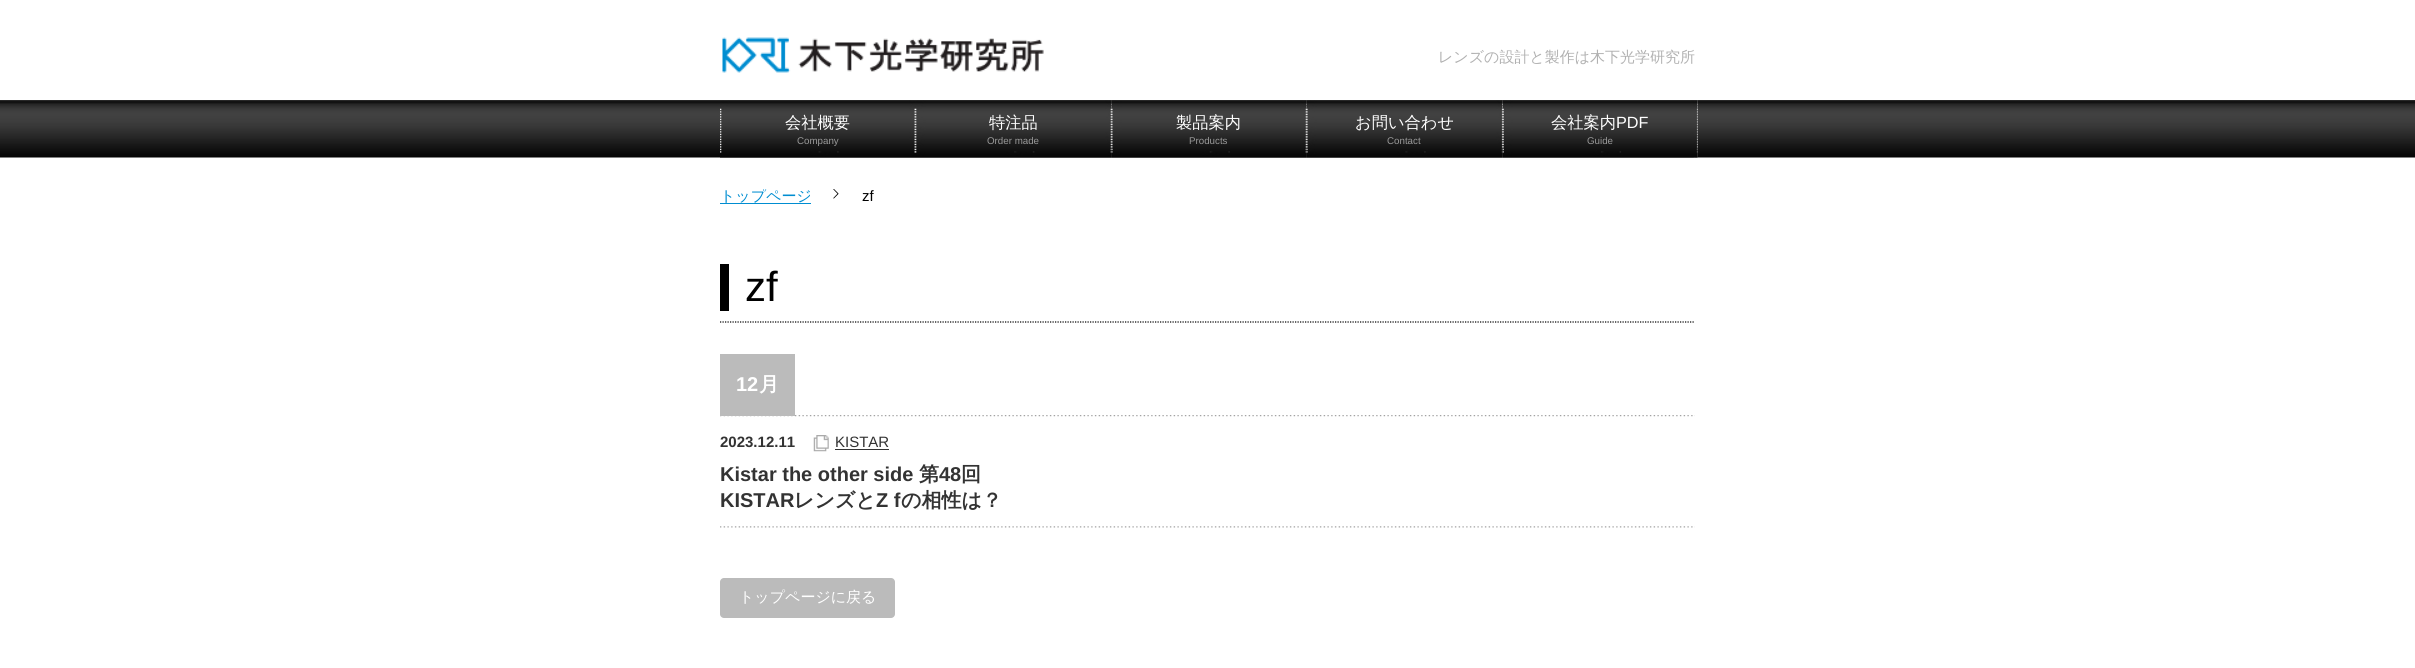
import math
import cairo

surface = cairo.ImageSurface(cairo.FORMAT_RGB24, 2415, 668)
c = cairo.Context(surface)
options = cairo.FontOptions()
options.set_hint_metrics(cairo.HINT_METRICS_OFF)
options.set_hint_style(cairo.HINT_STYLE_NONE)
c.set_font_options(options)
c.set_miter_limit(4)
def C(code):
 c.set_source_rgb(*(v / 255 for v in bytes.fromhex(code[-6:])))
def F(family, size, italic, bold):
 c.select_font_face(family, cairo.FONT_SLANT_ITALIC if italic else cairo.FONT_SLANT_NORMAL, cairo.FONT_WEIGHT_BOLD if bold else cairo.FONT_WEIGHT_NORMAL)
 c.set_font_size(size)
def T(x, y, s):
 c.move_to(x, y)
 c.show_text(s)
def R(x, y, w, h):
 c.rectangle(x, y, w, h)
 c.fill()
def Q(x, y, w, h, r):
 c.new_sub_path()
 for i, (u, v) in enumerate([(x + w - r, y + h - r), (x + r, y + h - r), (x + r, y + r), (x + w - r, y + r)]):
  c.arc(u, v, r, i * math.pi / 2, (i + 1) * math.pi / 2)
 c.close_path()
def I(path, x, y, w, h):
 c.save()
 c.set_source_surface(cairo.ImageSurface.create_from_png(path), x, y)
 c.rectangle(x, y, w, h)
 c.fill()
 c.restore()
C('ffffff')
c.paint()
I('1.png',722,37,322,36)
F('WenQuanYi Zen Hei Medium',15,0,0)
C('b1b1b1')
T(1438,62,'レンズの設計と製作は木下光学研究所')
I('2.png',0,100,2415,58)
I('3.png',1693,100,5,58)
I('4.png',720,157,195,1)
I('5.png',720,100,195,58)
F('WenQuanYi Zen Hei Medium',16.25,0,0)
C('ffffff')
T(785,128,'会社概要')
F('Liberation Sans',9.75,0,0)
C('999999')
T(797,144,'Company')
I('6.png',915,100,197,58)
I('7.png',915,100,197,58)
F('WenQuanYi Zen Hei Medium',16.25,0,0)
C('ffffff')
T(989,128,'特注品')
F('Liberation Sans',9.75,0,0)
C('999999')
T(987,144,'Order made')
I('8.png',1111,100,196,58)
I('9.png',1111,100,196,58)
F('WenQuanYi Zen Hei Medium',16.25,0,0)
C('ffffff')
T(1176,128,'製品案内')
F('Liberation Sans',9.75,0,0)
C('999999')
T(1189,144,'Products')
I('10.png',1306,100,197,58)
I('11.png',1306,100,197,58)
F('WenQuanYi Zen Hei Medium',16.25,0,0)
C('ffffff')
T(1355,128,'お問い合わせ')
F('Liberation Sans',9.75,0,0)
C('999999')
T(1387,144,'Contact')
I('12.png',1502,100,196,58)
I('13.png',1502,100,196,58)
F('WenQuanYi Zen Hei Medium',16.25,0,0)
C('ffffff')
T(1551,128,'会社案内')
F('Liberation Sans',16.25,0,0)
T(1616,128,'PDF')
F('Liberation Sans',9.75,0,0)
C('999999')
T(1587,144,'Guide')
c.save()
c.rectangle(720,189,975,15)
c.clip()
F('WenQuanYi Zen Hei Medium',15,0,0)
C('008dd1')
T(720,201,'トップページ')
c.restore()
C('008dd1')
R(720,203,91,1)
I('14.png',833,189,6,10)
F('Liberation Sans',15,0,0)
C('000000')
T(862,201,'zf')
c.new_path()
c.move_to(720,322)
c.line_to(1695,322)
c.set_line_width(1.2)
c.set_dash([1.25,1.25])
c.stroke()
R(720,264,9,47)
F('Liberation Sans',42,0,0)
T(745,301,'zf')
I('15.png',720,415,975,2)
C('bbbbbb')
R(720,354,75,62)
F('Liberation Sans',20,0,1)
C('ffffff')
T(736,391,'12')
F('WenQuanYi Zen Hei',20,0,1)
T(759,391,'月')
I('16.png',720,526,975,2)
F('Liberation Sans',15,0,1)
C('333333')
T(720,447,'2023.12.11')
I('17.png',813,435,16,17)
F('Liberation Sans',15,0,0)
T(835,447,'KISTAR')
R(835,449,54,1)
F('Liberation Sans',20,0,1)
T(720,481,'Kistar the other side')
F('WenQuanYi Zen Hei',20,0,1)
T(919,481,'第')
F('Liberation Sans',20,0,1)
T(939,481,'48')
F('WenQuanYi Zen Hei',20,0,1)
T(961,481,'回')
F('Liberation Sans',20,0,1)
T(720,507,'KISTAR')
F('WenQuanYi Zen Hei',20,0,1)
T(794,507,'レンズと')
F('Liberation Sans',20,0,1)
T(876,507,'Z f')
F('WenQuanYi Zen Hei',20,0,1)
T(901,507,'の相性は？')
C('bbbbbb')
Q(720,578,175,40,4)
c.fill()
F('WenQuanYi Zen Hei Medium',15,0,0)
C('ffffff')
T(739,602,'トップページに戻る')
surface.write_to_png('o.png')
